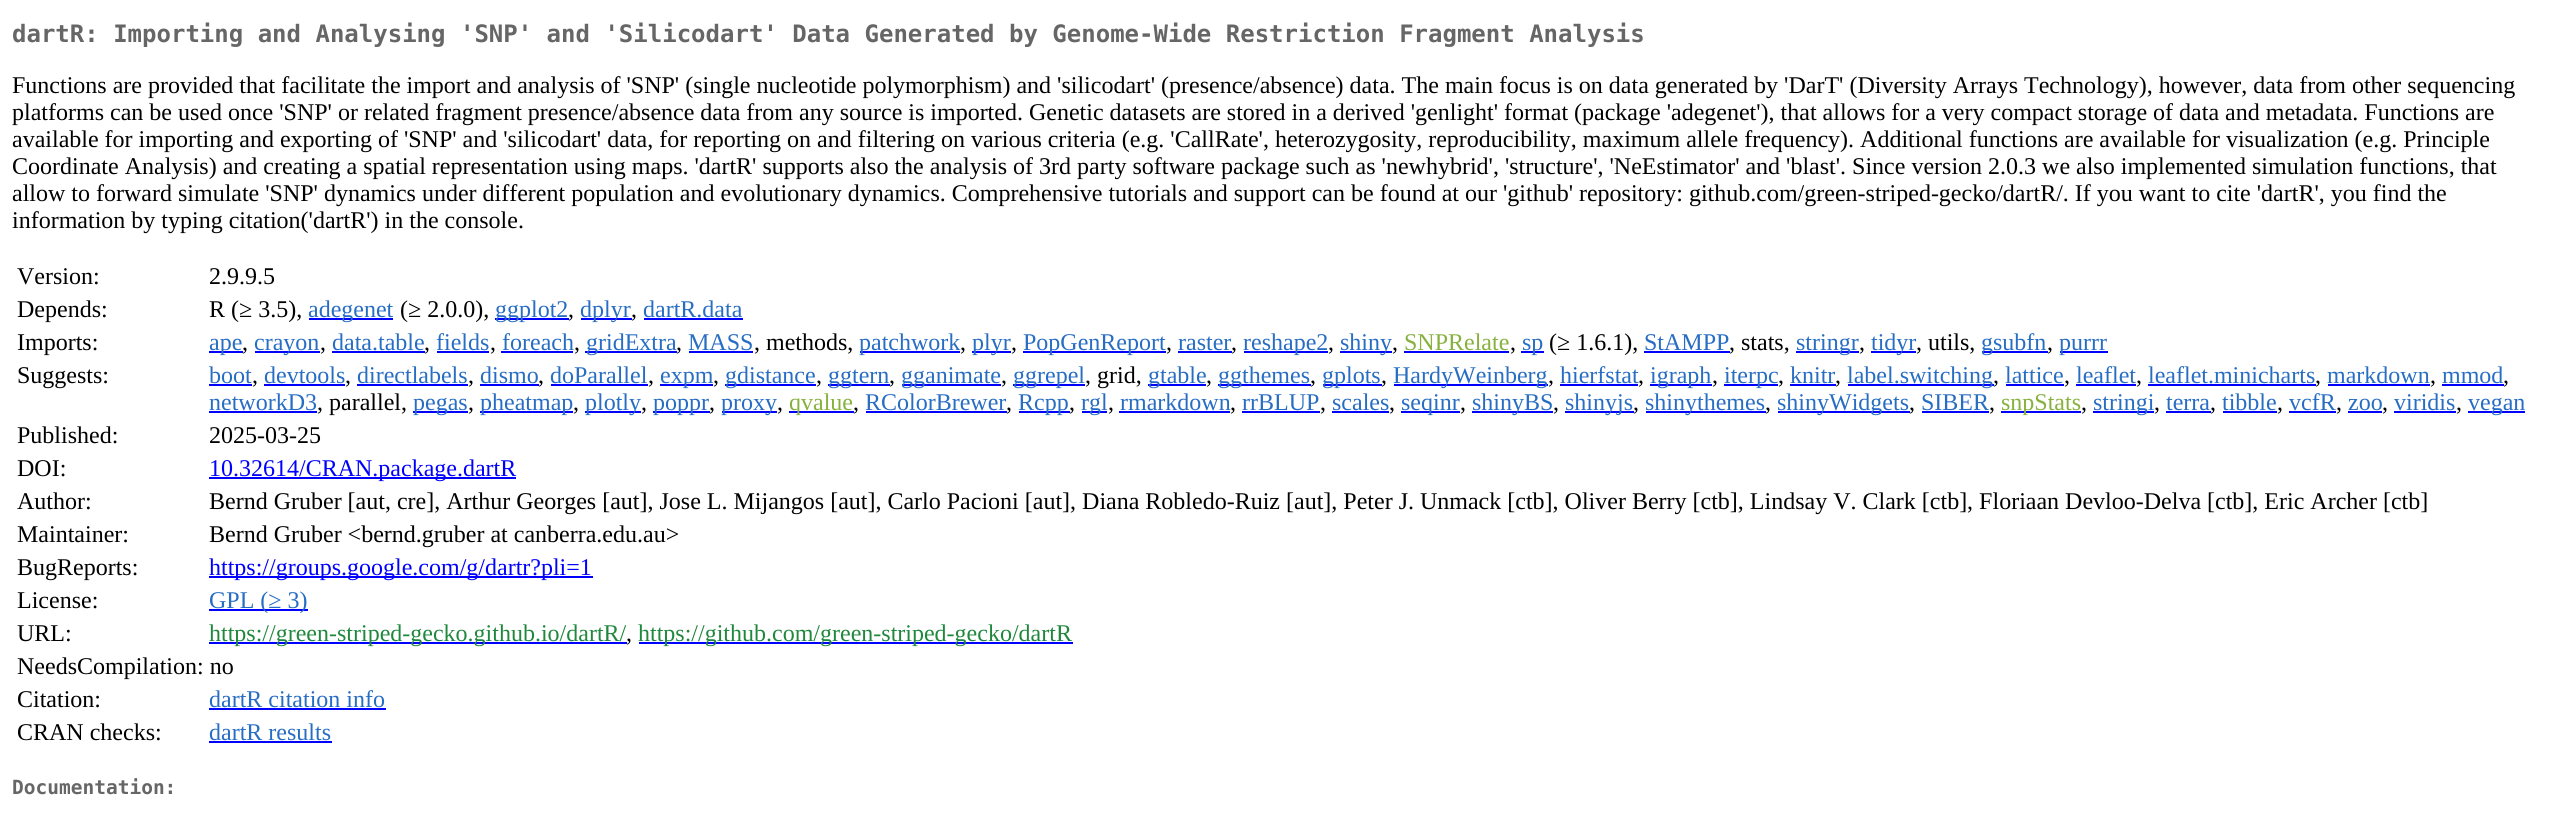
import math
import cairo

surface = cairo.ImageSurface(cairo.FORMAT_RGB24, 2560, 829)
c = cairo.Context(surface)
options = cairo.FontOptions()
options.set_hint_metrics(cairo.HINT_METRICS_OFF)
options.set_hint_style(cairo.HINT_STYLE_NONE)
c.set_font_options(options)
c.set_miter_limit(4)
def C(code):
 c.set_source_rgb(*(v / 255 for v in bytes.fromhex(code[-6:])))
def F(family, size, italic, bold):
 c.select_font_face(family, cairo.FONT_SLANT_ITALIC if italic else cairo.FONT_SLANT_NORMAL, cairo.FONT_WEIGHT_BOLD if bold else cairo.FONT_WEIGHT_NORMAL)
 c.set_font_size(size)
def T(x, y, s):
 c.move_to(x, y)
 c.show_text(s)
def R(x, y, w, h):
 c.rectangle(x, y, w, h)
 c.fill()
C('ffffff')
c.paint()
F('DejaVu Sans Mono',24,0,1)
C('666666')
T(12,42,'dartR: Importing and Analysing \'SNP\' and \'Silicodart\' Data Generated by Genome-Wide Restriction Fragment Analysis')
F('Liberation Serif',24,0,0)
C('000000')
T(12,93,'Functions are provided that facilitate the import and analysis of \'SNP\' (single nucleotide polymorphism) and \'silicodart\' (presence/absence) data. The main focus is on data generated by \'DarT\' (Diversity Arrays Technology), however, data from other sequencing')
T(12,120,'platforms can be used once \'SNP\' or related fragment presence/absence data from any source is imported. Genetic datasets are stored in a derived \'genlight\' format (package \'adegenet\'), that allows for a very compact storage of data and metadata. Functions are')
T(12,147,'available for importing and exporting of \'SNP\' and \'silicodart\' data, for reporting on and filtering on various criteria (e.g. \'CallRate\', heterozygosity, reproducibility, maximum allele frequency). Additional functions are available for visualization (e.g. Principle')
T(12,174,'Coordinate Analysis) and creating a spatial representation using maps. \'dartR\' supports also the analysis of 3rd party software package such as \'newhybrid\', \'structure\', \'NeEstimator\' and \'blast\'. Since version 2.0.3 we also implemented simulation functions, that')
T(12,201,'allow to forward simulate \'SNP\' dynamics under different population and evolutionary dynamics. Comprehensive tutorials and support can be found at our \'github\' repository: github.com/green-striped-gecko/dartR/. If you want to cite \'dartR\', you find the')
T(12,228,'information by typing citation(\'dartR\') in the console.')
T(17,284,'Version:')
T(209,284,'2.9.9.5')
T(17,317,'Depends:')
T(209,317,'R (≥ 3.5),')
C('0000ff')
R(309,318,84,2)
C('276dc3')
T(308,317,'adegenet')
C('000000')
T(400,317,'(≥ 2.0.0),')
C('0000ff')
R(495,318,74,2)
C('276dc3')
T(495,317,'ggplot2')
C('000000')
T(568,317,',')
C('0000ff')
R(581,318,51,2)
C('276dc3')
T(580,317,'dplyr')
C('000000')
T(631,317,',')
C('276dc3')
T(643,317,'dartR.data')
C('0000ff')
R(644,318,99,2)
C('000000')
T(17,350,'Imports:')
C('0000ff')
R(209,351,34,2)
C('276dc3')
T(209,350,'ape')
C('000000')
T(242,350,',')
C('0000ff')
R(255,351,65,2)
C('276dc3')
T(254,350,'crayon')
C('000000')
T(320,350,',')
C('276dc3')
T(332,350,'data.table')
C('0000ff')
R(332,351,93,2)
C('000000')
T(424,350,',')
C('276dc3')
T(436,350,'fields')
C('0000ff')
R(437,351,52,2)
C('000000')
T(490,350,',')
C('276dc3')
T(502,350,'foreach')
C('0000ff')
R(501,351,72,2)
C('000000')
T(574,350,',')
C('0000ff')
R(585,351,92,2)
C('276dc3')
T(586,350,'gridExtra')
C('000000')
T(676,350,',')
C('276dc3')
T(688,350,'MASS')
C('0000ff')
R(689,351,64,2)
C('000000')
T(754,350,', methods,')
C('0000ff')
R(860,351,100,2)
C('276dc3')
T(859,350,'patchwork')
C('000000')
T(960,350,',')
C('0000ff')
R(972,351,39,2)
C('276dc3')
T(972,350,'plyr')
C('000000')
T(1011,350,',')
C('0000ff')
R(1023,351,143,2)
C('276dc3')
T(1023,350,'PopGenReport')
C('000000')
T(1166,350,',')
C('276dc3')
T(1178,350,'raster')
C('0000ff')
R(1178,351,54,2)
C('000000')
T(1231,350,',')
C('0000ff')
R(1244,351,84,2)
C('276dc3')
T(1243,350,'reshape2')
C('000000')
T(1328,350,',')
C('0000ff')
R(1340,351,52,2)
C('276dc3')
T(1340,350,'shiny')
C('000000')
T(1392,350,',')
C('87b13f')
T(1404,350,'SNPRelate')
C('0000ff')
R(1404,351,105,2)
C('000000')
T(1510,350,',')
C('0000ff')
R(1521,351,23,2)
C('276dc3')
T(1522,350,'sp')
C('000000')
T(1549,350,'(≥ 1.6.1),')
C('276dc3')
T(1644,350,'StAMPP')
C('0000ff')
R(1644,351,86,2)
C('000000')
T(1729,350,', stats,')
C('0000ff')
R(1796,351,63,2)
C('276dc3')
T(1796,350,'stringr')
C('000000')
T(1859,350,',')
C('0000ff')
R(1871,351,45,2)
C('276dc3')
T(1871,350,'tidyr')
C('000000')
T(1916,350,', utils,')
C('0000ff')
R(1982,351,66,2)
C('276dc3')
T(1981,350,'gsubfn')
C('000000')
T(2047,350,',')
C('0000ff')
R(2060,351,48,2)
C('276dc3')
T(2059,350,'purrr')
C('000000')
T(17,383,'Suggests:')
C('276dc3')
T(209,383,'boot')
C('0000ff')
R(209,384,43,2)
C('000000')
T(252,383,',')
C('276dc3')
T(264,383,'devtools')
C('0000ff')
R(264,384,81,2)
C('000000')
T(345,383,',')
C('276dc3')
T(357,383,'directlabels')
C('0000ff')
R(357,384,111,2)
C('000000')
T(468,383,',')
C('276dc3')
T(480,383,'dismo')
C('0000ff')
R(480,384,59,2)
C('000000')
T(538,383,',')
C('276dc3')
T(550,383,'doParallel')
C('0000ff')
R(551,384,97,2)
C('000000')
T(648,383,',')
C('0000ff')
R(660,384,53,2)
C('276dc3')
T(660,383,'expm')
C('000000')
T(713,383,',')
C('0000ff')
R(725,384,91,2)
C('276dc3')
T(725,383,'gdistance')
C('000000')
T(816,383,',')
C('0000ff')
R(828,384,62,2)
C('276dc3')
T(828,383,'ggtern')
C('000000')
T(889,383,',')
C('0000ff')
R(902,384,99,2)
C('276dc3')
T(901,383,'gganimate')
C('000000')
T(1001,383,',')
C('0000ff')
R(1013,384,72,2)
C('276dc3')
T(1013,383,'ggrepel')
C('000000')
T(1085,383,', grid,')
C('0000ff')
R(1148,384,58,2)
C('276dc3')
T(1148,383,'gtable')
C('000000')
T(1206,383,',')
C('0000ff')
R(1218,384,93,2)
C('276dc3')
T(1218,383,'ggthemes')
C('000000')
T(1310,383,',')
C('0000ff')
R(1323,384,59,2)
C('276dc3')
T(1322,383,'gplots')
C('000000')
T(1381,383,',')
C('0000ff')
R(1394,384,154,2)
C('276dc3')
T(1393,383,'HardyWeinberg')
C('000000')
T(1548,383,',')
C('276dc3')
T(1560,383,'hierfstat')
C('0000ff')
R(1560,384,78,2)
C('000000')
T(1638,383,',')
C('0000ff')
R(1650,384,62,2)
C('276dc3')
T(1650,383,'igraph')
C('000000')
T(1712,383,',')
C('0000ff')
R(1724,384,54,2)
C('276dc3')
T(1724,383,'iterpc')
C('000000')
T(1778,383,',')
C('276dc3')
T(1790,383,'knitr')
C('0000ff')
R(1790,384,46,2)
C('000000')
T(1835,383,',')
C('0000ff')
R(1848,384,146,2)
C('276dc3')
T(1847,383,'label.switching')
C('000000')
T(1993,383,',')
C('276dc3')
T(2005,383,'lattice')
C('0000ff')
R(2006,384,58,2)
C('000000')
T(2064,383,',')
C('276dc3')
T(2076,383,'leaflet')
C('0000ff')
R(2076,384,60,2)
C('000000')
T(2136,383,',')
C('276dc3')
T(2148,383,'leaflet.minicharts')
C('0000ff')
R(2148,384,168,2)
C('000000')
T(2315,383,',')
C('276dc3')
T(2327,383,'markdown')
C('0000ff')
R(2328,384,102,2)
C('000000')
T(2430,383,',')
C('276dc3')
T(2442,383,'mmod')
C('0000ff')
R(2442,384,62,2)
C('000000')
T(2503,383,',')
C('276dc3')
T(209,410,'networkD3')
C('0000ff')
R(209,411,108,2)
C('000000')
T(317,410,', parallel,')
C('0000ff')
R(413,411,55,2)
C('276dc3')
T(413,410,'pegas')
C('000000')
T(468,410,',')
C('0000ff')
R(480,411,93,2)
C('276dc3')
T(480,410,'pheatmap')
C('000000')
T(573,410,',')
C('0000ff')
R(585,411,56,2)
C('276dc3')
T(585,410,'plotly')
C('000000')
T(641,410,',')
C('0000ff')
R(653,411,57,2)
C('276dc3')
T(653,410,'poppr')
C('000000')
T(709,410,',')
C('0000ff')
R(722,411,55,2)
C('276dc3')
T(721,410,'proxy')
C('000000')
T(777,410,',')
C('0000ff')
R(789,411,65,2)
C('87b13f')
T(789,410,'qvalue')
C('000000')
T(853,410,',')
C('276dc3')
T(865,410,'RColorBrewer')
C('0000ff')
R(866,411,141,2)
C('000000')
T(1006,410,',')
C('0000ff')
R(1019,411,51,2)
C('276dc3')
T(1018,410,'Rcpp')
C('000000')
T(1069,410,',')
C('0000ff')
R(1082,411,25,2)
C('276dc3')
T(1081,410,'rgl')
C('000000')
T(1108,410,',')
C('276dc3')
T(1120,410,'rmarkdown')
C('0000ff')
R(1119,411,111,2)
C('000000')
T(1230,410,',')
C('276dc3')
T(1242,410,'rrBLUP')
C('0000ff')
R(1242,411,78,2)
C('000000')
T(1320,410,',')
C('276dc3')
T(1332,410,'scales')
C('0000ff')
R(1332,411,57,2)
C('000000')
T(1389,410,',')
C('0000ff')
R(1401,411,59,2)
C('276dc3')
T(1401,410,'seqinr')
C('000000')
T(1460,410,',')
C('0000ff')
R(1472,411,81,2)
C('276dc3')
T(1472,410,'shinyBS')
C('000000')
T(1553,410,',')
C('0000ff')
R(1565,411,69,2)
C('276dc3')
T(1565,410,'shinyjs')
C('000000')
T(1633,410,',')
C('0000ff')
R(1646,411,120,2)
C('276dc3')
T(1645,410,'shinythemes')
C('000000')
T(1765,410,',')
C('0000ff')
R(1778,411,132,2)
C('276dc3')
T(1777,410,'shinyWidgets')
C('000000')
T(1909,410,',')
C('276dc3')
T(1921,410,'SIBER')
C('0000ff')
R(1922,411,67,2)
C('000000')
T(1989,410,',')
C('0000ff')
R(2001,411,80,2)
C('87b13f')
T(2001,410,'snpStats')
C('000000')
T(2081,410,',')
C('0000ff')
R(2093,411,61,2)
C('276dc3')
T(2093,410,'stringi')
C('000000')
T(2154,410,',')
C('276dc3')
T(2166,410,'terra')
C('0000ff')
R(2166,411,45,2)
C('000000')
T(2210,410,',')
C('276dc3')
T(2222,410,'tibble')
C('0000ff')
R(2223,411,54,2)
C('000000')
T(2277,410,',')
C('276dc3')
T(2289,410,'vcfR')
C('0000ff')
R(2289,411,47,2)
C('000000')
T(2336,410,',')
C('276dc3')
T(2348,410,'zoo')
C('0000ff')
R(2348,411,34,2)
C('000000')
T(2382,410,',')
C('276dc3')
T(2394,410,'viridis')
C('0000ff')
R(2394,411,62,2)
C('000000')
T(2456,410,',')
C('0000ff')
R(2468,411,57,2)
C('276dc3')
T(2468,410,'vegan')
C('000000')
T(17,443,'Published:')
T(209,443,'2025-03-25')
T(17,476,'DOI:')
C('0000ff')
R(209,477,307,2)
T(209,476,'10.32614/CRAN.package.dartR')
C('000000')
T(17,509,'Author:')
T(209,509,'Bernd Gruber [aut, cre], Arthur Georges [aut], Jose L. Mijangos [aut], Carlo Pacioni [aut], Diana Robledo-Ruiz [aut], Peter J. Unmack [ctb], Oliver Berry [ctb], Lindsay V. Clark [ctb], Floriaan Devloo-Delva [ctb], Eric Archer [ctb]')
T(17,542,'Maintainer:')
T(209,542,'Bernd Gruber <bernd.gruber at canberra.edu.au>')
T(17,575,'BugReports:')
C('0000ff')
R(209,576,384,2)
T(209,575,'https://groups.google.com/g/dartr?pli=1')
C('000000')
T(17,608,'License:')
C('0000ff')
R(209,609,99,2)
C('276dc3')
T(209,608,'GPL (≥ 3)')
C('000000')
T(17,641,'URL:')
C('0000ff')
R(209,642,418,2)
C('1f883d')
T(209,641,'https://green-striped-gecko.github.io/dartR/')
C('000000')
T(626,641,',')
C('0000ff')
R(639,642,434,2)
C('1f883d')
T(638,641,'https://github.com/green-striped-gecko/dartR')
C('000000')
T(17,674,'NeedsCompilation: no')
T(17,707,'Citation:')
C('276dc3')
T(209,707,'dartR citation info')
C('0000ff')
R(209,708,177,2)
C('000000')
T(17,740,'CRAN checks:')
C('276dc3')
T(209,740,'dartR results')
C('0000ff')
R(209,741,123,2)
F('DejaVu Sans Mono',19.5,0,1)
C('666666')
T(12,794,'Documentation:')
surface.write_to_png('o.png')
